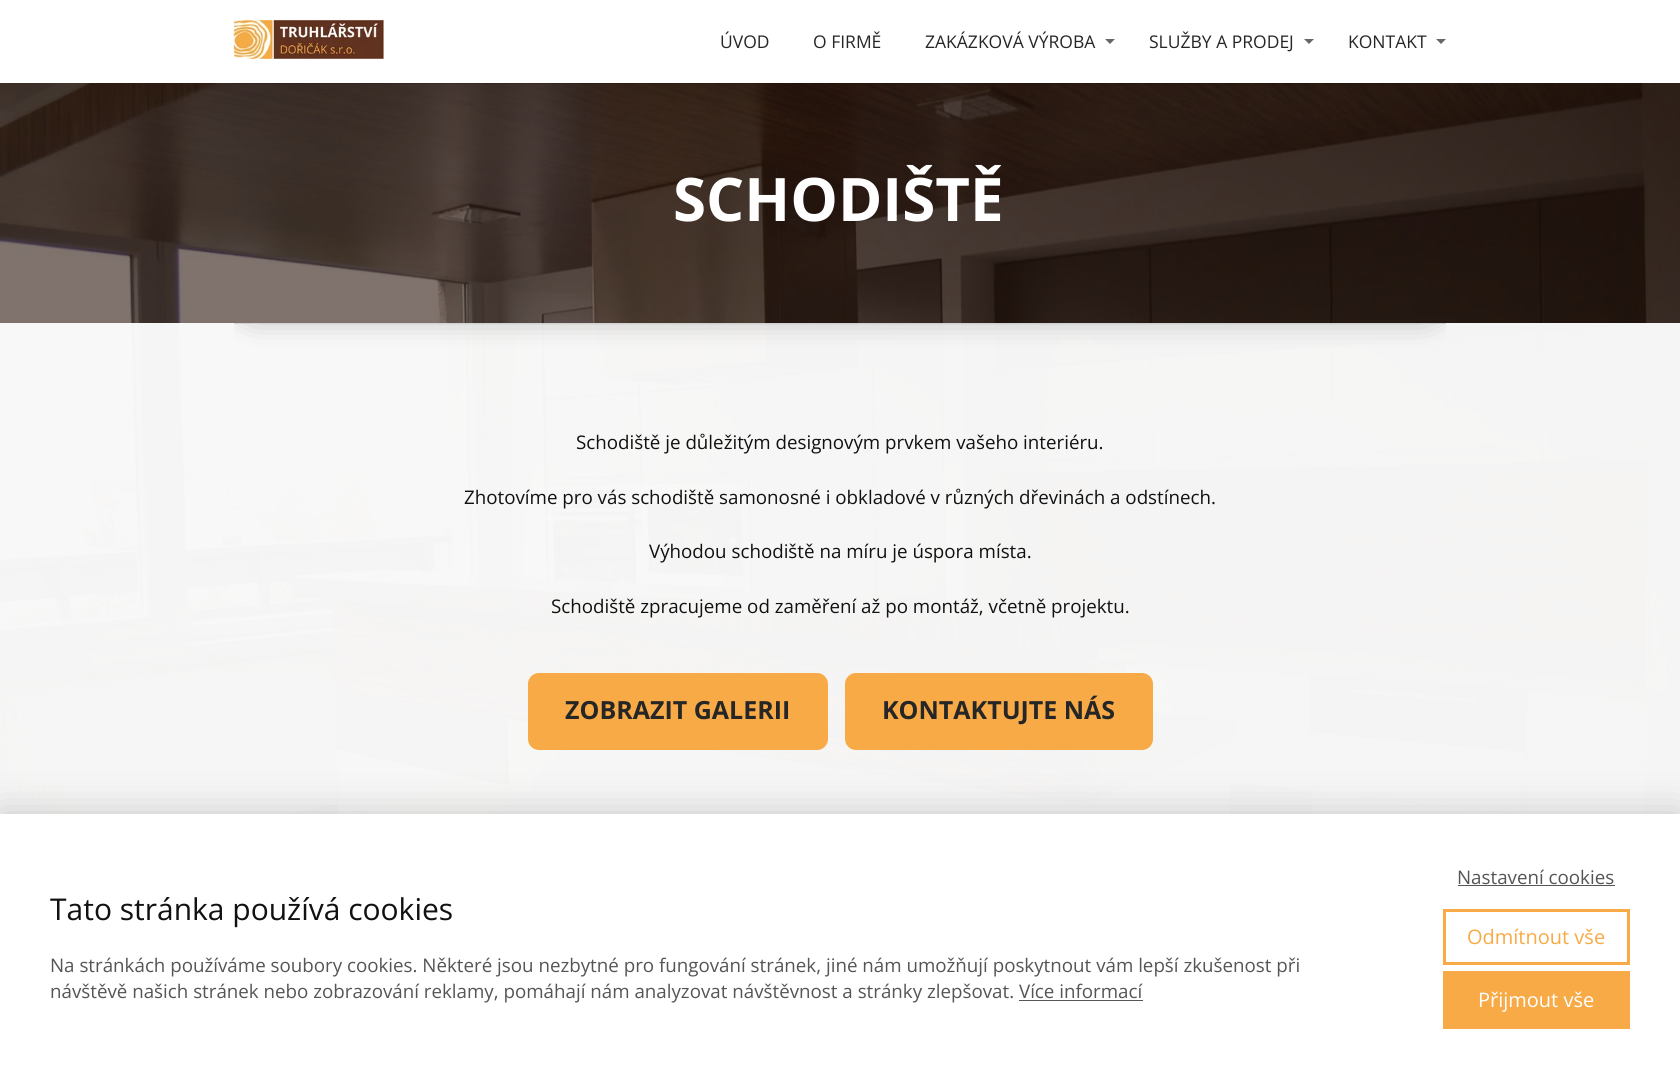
import math
import cairo

surface = cairo.ImageSurface(cairo.FORMAT_RGB24, 1680, 1078)
c = cairo.Context(surface)
options = cairo.FontOptions()
options.set_hint_metrics(cairo.HINT_METRICS_OFF)
options.set_hint_style(cairo.HINT_STYLE_NONE)
c.set_font_options(options)
c.set_miter_limit(4)
def C(code):
 c.set_source_rgb(*(v / 255 for v in bytes.fromhex(code[-6:])))
def F(family, size, italic, bold):
 c.select_font_face(family, cairo.FONT_SLANT_ITALIC if italic else cairo.FONT_SLANT_NORMAL, cairo.FONT_WEIGHT_BOLD if bold else cairo.FONT_WEIGHT_NORMAL)
 c.set_font_size(size)
def T(x, y, s):
 c.move_to(x, y)
 c.show_text(s)
def R(x, y, w, h):
 c.rectangle(x, y, w, h)
 c.fill()
def Q(x, y, w, h, r):
 c.new_sub_path()
 for i, (u, v) in enumerate([(x + w - r, y + h - r), (x + r, y + h - r), (x + r, y + r), (x + w - r, y + r)]):
  c.arc(u, v, r, i * math.pi / 2, (i + 1) * math.pi / 2)
 c.close_path()
def S(x, y, w, h, r, blur, alpha):
 c.push_group_with_content(cairo.CONTENT_ALPHA)
 c.set_operator(cairo.OPERATOR_SOURCE)
 for i in range(15, -16, -2):
  e = blur * i / 6
  if min(w, h) + 2 * e > 0:
   c.set_source_rgba(0, 0, 0, alpha * math.erfc((i - 1) / 8.5) / 2)
   Q(x - e, y - e, w + 2 * e, h + 2 * e, max(0, min(r + e + blur * .6, min(w, h) / 2 + e)))
   c.fill()
 c.mask(c.pop_group())
def I(path, x, y, w, h):
 c.save()
 c.set_source_surface(cairo.ImageSurface.create_from_png(path), x, y)
 c.rectangle(x, y, w, h)
 c.fill()
 c.restore()
C('ffffff')
c.paint()
I('1.png',233,20,151,39)
F('Open Sans',17.5,0,0)
C('262626')
T(720,48,'ÚVOD')
T(813,48,'O FIRMĚ')
T(925,48,'ZAKÁZKOVÁ VÝROBA')
C('676767')
c.new_path()
c.move_to(1105,39)
c.line_to(1115,39)
c.line_to(1110,44)
c.close_path()
c.fill()
C('262626')
T(1149,48,'SLUŽBY A PRODEJ')
C('676767')
c.new_path()
c.move_to(1304,39)
c.line_to(1314,39)
c.line_to(1309,44)
c.close_path()
c.fill()
C('262626')
T(1348,48,'KONTAKT')
C('676767')
c.new_path()
c.move_to(1436,39)
c.line_to(1446,39)
c.line_to(1441,44)
c.close_path()
c.fill()
I('2.png',0,83,1680,731)
c.set_source_rgba(0,0,0,0.15)
R(234,83,1212,1)
F('Open Sans',60,0,1)
C('ffffff')
T(673,221,'SCHODIŠTĚ')
c.set_source_rgba(1,1,1,0.95)
R(0,323,1680,491)
c.set_source_rgba(0,0,0,0.15)
R(234,323,1212,1)
c.save()
c.rectangle(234,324,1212,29)
c.clip()
C('000000')
S(234,255,1212,63,31.5,14.5,.3)
c.restore()
F('Open Sans',18.75,0,0)
C('111111')
T(576,449,'Schodiště je důležitým designovým prvkem vašeho interiéru.')
T(464,504,'Zhotovíme pro vás schodiště samonosné i obkladové v různých dřevinách a odstínech.')
T(649,558,'Výhodou schodiště na míru je úspora místa.')
T(551,613,'Schodiště zpracujeme od zaměření až po montáž, včetně projektu.')
C('f8aa46')
Q(528,673,300,77,11)
c.fill()
F('Open Sans',25,0,1)
C('262626')
T(565,719,'ZOBRAZIT GALERII')
C('f8aa46')
Q(845,673,308,77,11)
c.fill()
C('262626')
T(882,719,'KONTAKTUJTE NÁS')
C('000000')
S(0,814,1680,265,0,19,.2)
C('ffffff')
R(0,814,1680,264)
F('Open Sans',30,0,0)
C('111111')
T(50,920,'Tato stránka používá cookies')
F('Open Sans',18.75,0,0)
C('555555')
T(50,972,'Na stránkách používáme soubory cookies. Některé jsou nezbytné pro fungování stránek, jiné nám umožňují poskytnout vám lepší zkušenost při')
T(50,998,'návštěvě našich stránek nebo zobrazování reklamy, pomáhají nám analyzovat návštěvnost a stránky zlepšovat. Více informací')
R(1019,1000,124,1)
T(1457,884,'Nastavení cookies')
R(1458,885,157,1)
c.rectangle(1444.5,910.5,184,53)
C('f8aa46')
c.set_line_width(3)
c.stroke()
F('Open Sans',20,0,0)
T(1467,944,'Odmítnout vše')
R(1443,971,187,58)
C('ffffff')
T(1478,1007,'Přijmout vše')
surface.write_to_png('o.png')
